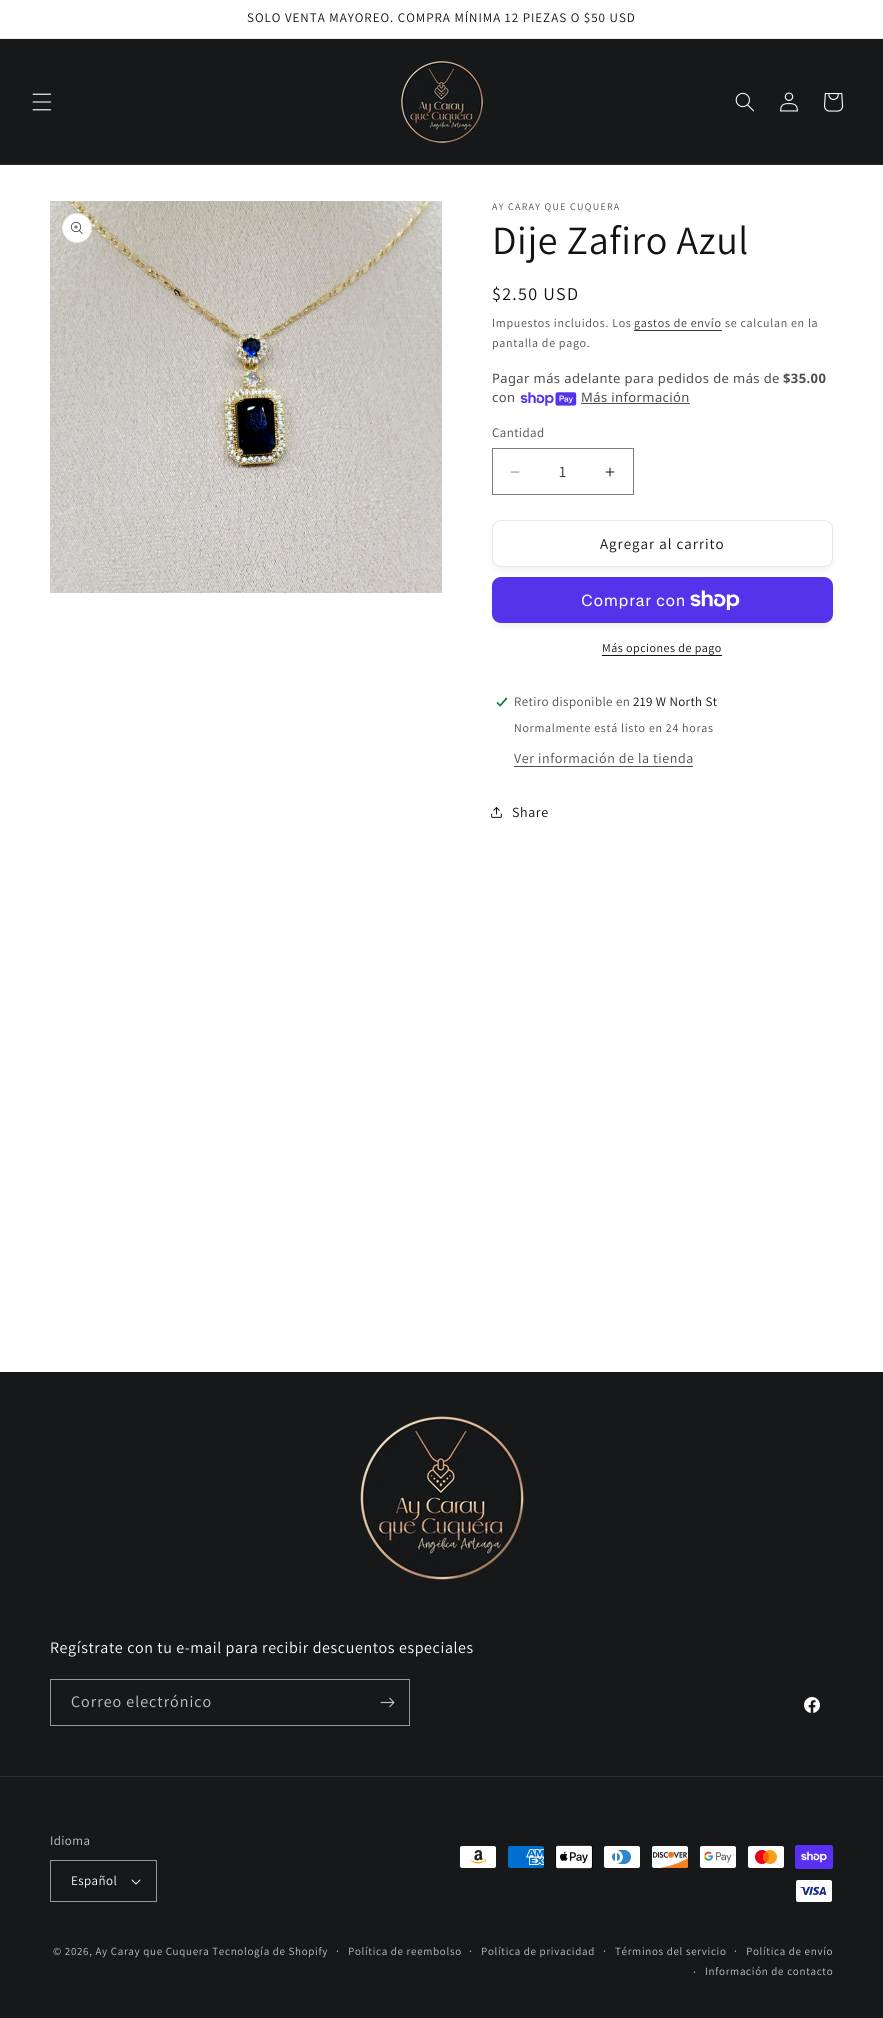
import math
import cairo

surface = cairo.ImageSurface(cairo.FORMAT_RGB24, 883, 2018)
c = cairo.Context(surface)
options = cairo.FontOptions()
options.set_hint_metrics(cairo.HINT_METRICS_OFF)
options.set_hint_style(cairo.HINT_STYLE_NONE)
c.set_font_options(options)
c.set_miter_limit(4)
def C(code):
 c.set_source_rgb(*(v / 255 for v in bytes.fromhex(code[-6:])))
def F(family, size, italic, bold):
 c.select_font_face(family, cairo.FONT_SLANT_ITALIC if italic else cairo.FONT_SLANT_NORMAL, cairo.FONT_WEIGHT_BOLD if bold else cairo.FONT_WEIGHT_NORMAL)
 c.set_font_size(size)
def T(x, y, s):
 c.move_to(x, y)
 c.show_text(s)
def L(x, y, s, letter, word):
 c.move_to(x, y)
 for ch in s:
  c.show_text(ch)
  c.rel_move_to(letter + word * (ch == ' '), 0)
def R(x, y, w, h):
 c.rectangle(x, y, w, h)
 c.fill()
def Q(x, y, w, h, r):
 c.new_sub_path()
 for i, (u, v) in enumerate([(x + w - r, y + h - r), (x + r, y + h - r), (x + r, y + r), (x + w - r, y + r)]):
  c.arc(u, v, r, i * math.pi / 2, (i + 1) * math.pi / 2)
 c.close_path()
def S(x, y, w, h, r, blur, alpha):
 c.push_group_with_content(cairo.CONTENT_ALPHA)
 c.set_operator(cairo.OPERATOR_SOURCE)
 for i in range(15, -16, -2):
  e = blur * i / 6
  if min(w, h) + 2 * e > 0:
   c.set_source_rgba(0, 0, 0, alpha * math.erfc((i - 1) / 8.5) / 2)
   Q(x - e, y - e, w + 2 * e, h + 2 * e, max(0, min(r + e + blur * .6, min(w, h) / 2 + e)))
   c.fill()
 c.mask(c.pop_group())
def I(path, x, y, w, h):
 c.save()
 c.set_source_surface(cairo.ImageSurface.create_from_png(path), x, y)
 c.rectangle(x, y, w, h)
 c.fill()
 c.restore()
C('ffffff')
c.paint()
C('ececec')
R(0,38,883,1)
F('Assistant',13,0,0)
C('121212')
L(247,22,'SOLO VENTA MAYOREO. COMPRA MÍNIMA 12 PIEZAS O $50 USD',1,0)
C('17181a')
R(0,39,883,125)
C('2a2a2c')
R(0,164,883,1)
I('1.png',32,93,20,18)
I('2.png',401,61,82,82)
I('3.png',735,92,19,20)
I('4.png',780,92,18,20)
I('5.png',824,93,20,19)
I('6.png',50,201,392,392)
C('ffffff')
c.arc(77,228,15,0,2 * math.pi)
c.fill()
c.arc(77,228,14.5,0,2 * math.pi)
c.set_source_rgba(0.071,0.071,0.071,0.1)
c.set_line_width(1)
c.stroke()
I('7.png',71,222,12,12)
F('Assistant',10,0,0)
C('4d4d4d')
L(492,210,'AY CARAY QUE CUQUERA',1.3,0)
F('Assistant',40,0,0)
C('121212')
L(492,254,'Dije Zafiro Azul',.6,0)
F('Assistant',18,0,0)
L(492,300,'$2.50 USD',1.3,0)
F('Assistant',12,0,0)
C('4d4d4d')
L(492,327,'Impuestos incluidos. Los',.7,0)
C('363636')
L(634,327,'gastos de envío',.7,0)
R(634,330,88,1)
C('4d4d4d')
L(725,327,'se calculan en la',.7,0)
L(492,347,'pantalla de pago.',.7,0)
F('Noto Sans',13,0,0)
L(492,383,'Pagar más adelante para pedidos de más de',.4,0)
F('Noto Sans',13,0,1)
L(783,383,'$35.00',.4,0)
F('Noto Sans',13,0,0)
L(492,402,'con',.4,0)
I('8.png',520,392,57,14)
L(581,402,'Más información',.4,0)
R(581,403,109,1)
F('Assistant',13,0,0)
L(492,437,'Cantidad',.4,0)
I('9.png',510,471,10,2)
I('10.png',605,467,10,10)
c.rectangle(492.5,448.5,141,46)
C('7d7d7d')
c.stroke()
F('Assistant',16,0,0)
C('363636')
T(559,477,'1')
C('121212')
S(492,524,341,47,9,2.5,.05)
C('ffffff')
Q(492,520,341,47,9)
c.fill()
Q(492.5,520.5,340,46,8.5)
C('e7e7e7')
c.stroke()
F('Assistant',15,0,0)
C('121212')
L(600,549,'Agregar al carrito',1,0)
C('121212')
S(492,581,341,46,9,2.5,.05)
C('5433eb')
Q(492,577,341,46,9)
c.fill()
F('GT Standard',16,0,0)
C('ffffff')
L(581,606,'Comprar con',.6,0)
I('11.png',690,590,50,20)
F('Assistant',12,0,0)
C('121212')
L(602,652,'Más opciones de pago',.5,0)
R(602,655,120,1)
I('12.png',496,697,12,10)
F('Assistant',13,0,0)
C('4d4d4d')
L(514,706,'Retiro disponible en',.4,0)
C('121212')
L(633,706,'219 W North St',.4,0)
F('Assistant',12,0,0)
C('4d4d4d')
L(514,732,'Normalmente está listo en 24 horas',.7,0)
F('Assistant',14,0,0)
L(514,763,'Ver información de la tienda',.6,0)
R(514,766,179,1)
I('13.png',491,807,11,11)
C('121212')
L(512,817,'Share',.6,0)
C('17181a')
R(0,1372,883,646)
I('14.png',360,1416,164,164)
F('Assistant',16,0,0)
C('ffffff')
L(50,1653,'Regístrate con tu e-mail para recibir descuentos especiales',.6,0)
c.rectangle(50.5,1679.5,359,46)
C('979798')
c.stroke()
C('c5c5c6')
L(71,1707,'Correo electrónico',1,0)
I('15.png',380,1697,15,11)
I('16.png',804,1697,16,16)
C('2a2a2c')
R(0,1776,883,1)
F('Assistant',13,0,0)
C('c5c5c6')
L(50,1845,'Idioma',.4,0)
I('17.png',131,1879,10,6)
c.rectangle(50.5,1860.5,106,41)
C('979798')
c.stroke()
C('ffffff')
L(71,1885,'Español',.4,0)
I('18.png',460,1846,36,22)
I('19.png',508,1846,36,22)
I('20.png',555,1845,38,24)
I('21.png',604,1846,36,22)
I('22.png',652,1846,36,22)
I('23.png',700,1846,36,22)
I('24.png',748,1846,36,22)
I('25.png',795,1845,38,24)
I('26.png',796,1880,36,22)
F('Assistant',11,0,0)
C('c5c5c6')
L(53,1955,'© 2026, Ay Caray que Cuquera Tecnología de Shopify',.7,0)
F('Assistant',12,0,0)
L(336,1955,'·',.7,0)
F('Assistant',11,0,0)
L(348,1955,'Política de reembolso',.7,0)
F('Assistant',12,0,0)
L(469,1955,'·',.7,0)
F('Assistant',11,0,0)
L(481,1955,'Política de privacidad',.7,0)
F('Assistant',12,0,0)
L(603,1955,'·',.7,0)
F('Assistant',11,0,0)
L(615,1955,'Términos del servicio',.7,0)
F('Assistant',12,0,0)
L(734,1955,'·',.7,0)
F('Assistant',11,0,0)
L(746,1955,'Política de envío',.7,0)
F('Assistant',12,0,0)
L(693,1976,'·',.7,0)
F('Assistant',11,0,0)
L(705,1975,'Información de contacto',.7,0)
surface.write_to_png('o.png')
